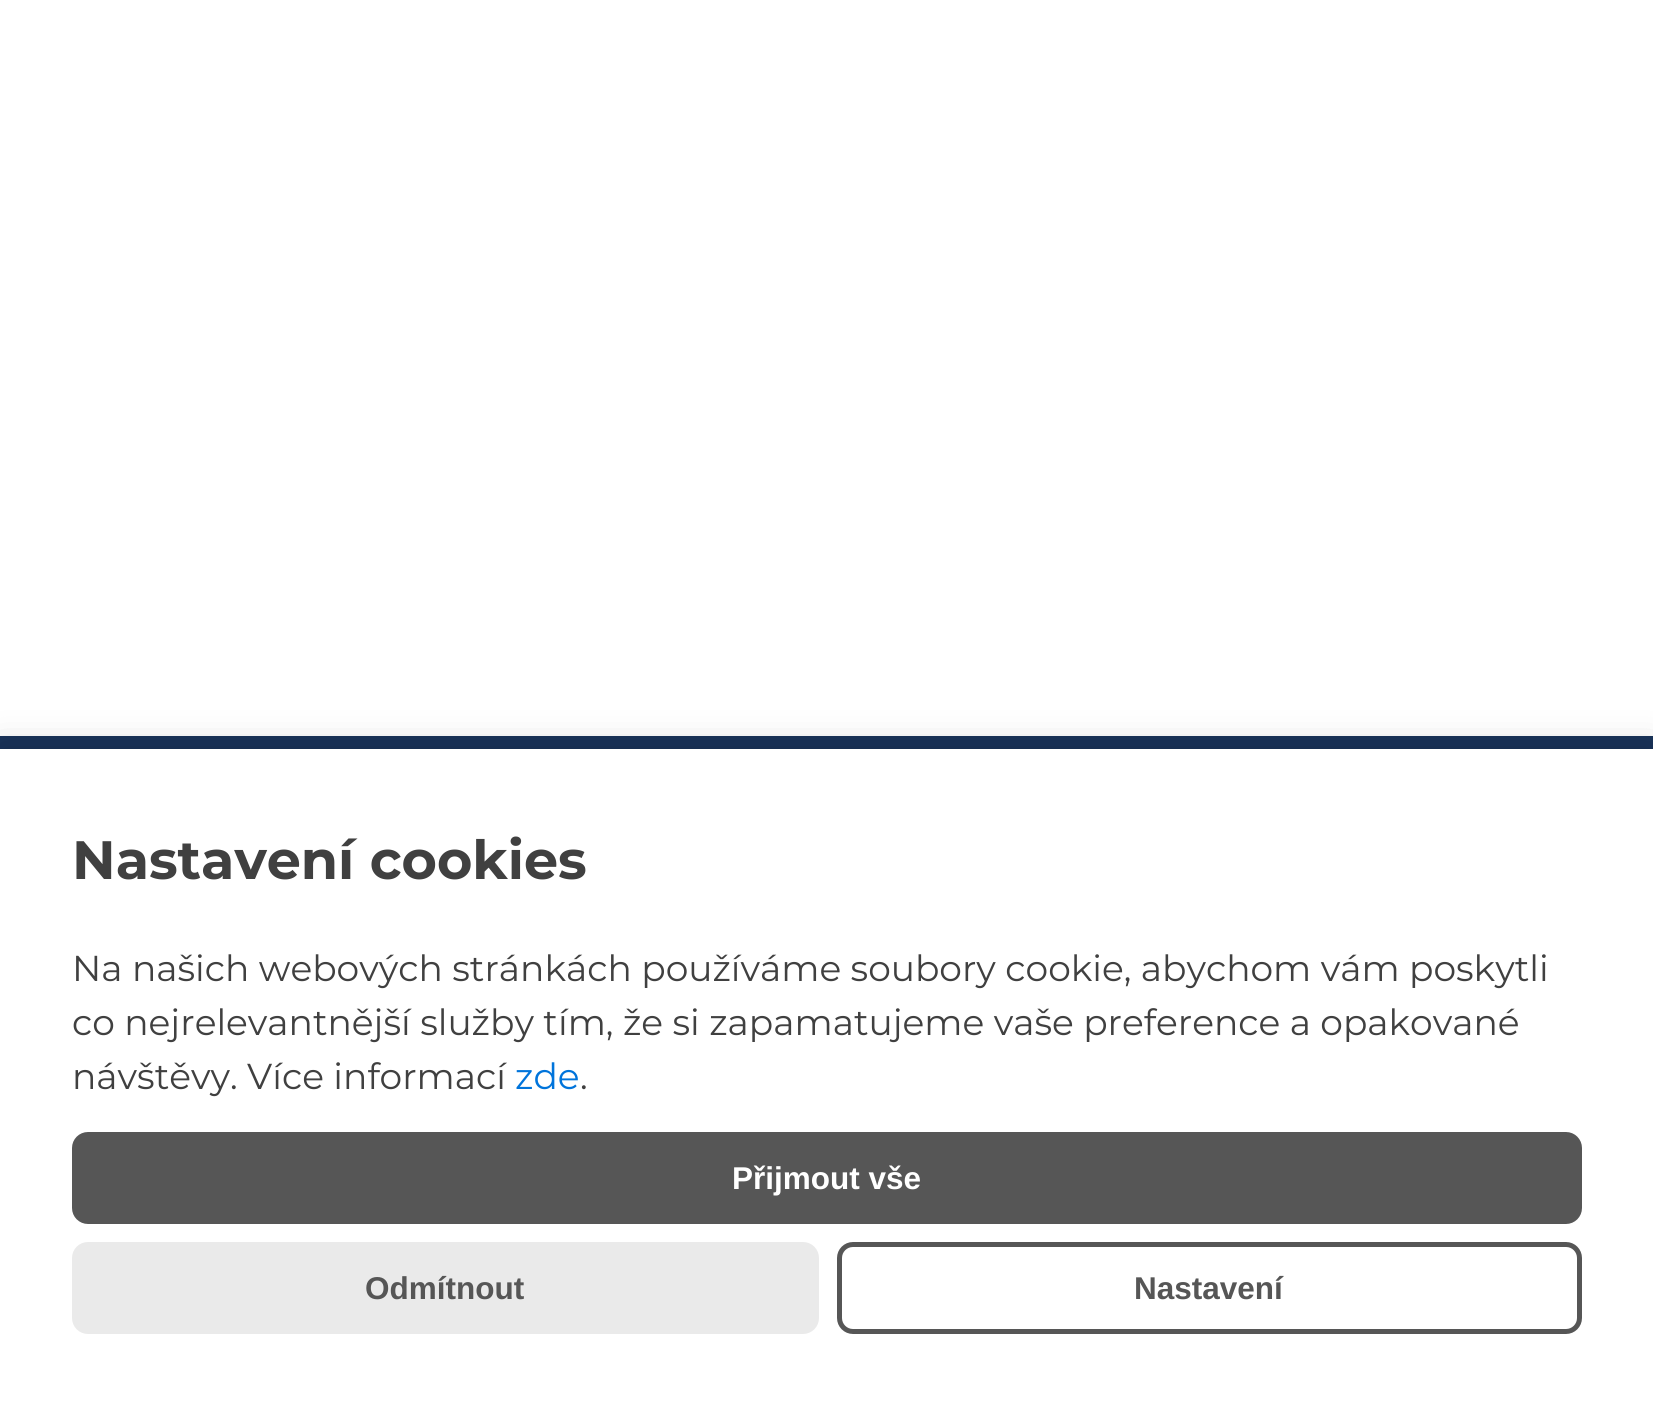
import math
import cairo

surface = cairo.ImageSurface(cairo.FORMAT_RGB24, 1653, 1405)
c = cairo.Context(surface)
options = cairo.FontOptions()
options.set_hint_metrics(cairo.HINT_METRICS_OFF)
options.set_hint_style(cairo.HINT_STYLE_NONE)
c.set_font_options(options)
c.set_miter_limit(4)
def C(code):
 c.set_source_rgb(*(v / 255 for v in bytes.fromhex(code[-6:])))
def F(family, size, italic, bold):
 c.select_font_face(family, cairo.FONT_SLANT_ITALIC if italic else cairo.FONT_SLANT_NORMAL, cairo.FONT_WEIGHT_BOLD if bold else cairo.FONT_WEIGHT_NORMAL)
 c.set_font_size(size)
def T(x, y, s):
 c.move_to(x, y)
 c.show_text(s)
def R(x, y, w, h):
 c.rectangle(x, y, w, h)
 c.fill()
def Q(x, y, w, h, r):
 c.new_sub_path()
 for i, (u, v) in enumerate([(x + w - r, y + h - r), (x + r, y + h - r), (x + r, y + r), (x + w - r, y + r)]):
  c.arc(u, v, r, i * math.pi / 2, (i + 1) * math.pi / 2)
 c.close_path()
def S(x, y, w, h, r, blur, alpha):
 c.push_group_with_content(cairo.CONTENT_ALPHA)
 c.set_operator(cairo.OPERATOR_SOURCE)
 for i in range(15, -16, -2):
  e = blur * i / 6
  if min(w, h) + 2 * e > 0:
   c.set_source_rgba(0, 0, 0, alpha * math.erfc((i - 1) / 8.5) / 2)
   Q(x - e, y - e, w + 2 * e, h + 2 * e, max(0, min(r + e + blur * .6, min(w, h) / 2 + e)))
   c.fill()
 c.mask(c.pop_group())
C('ffffff')
c.paint()
C('19335a')
R(0,736,1653,13)
C('000000')
S(0,749,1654,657,0,18,.2)
C('ffffff')
R(0,749,1653,656)
F('Montserrat',54,0,1)
C('404040')
T(72,879,'Nastavení cookies')
F('Montserrat',36,0,0)
T(72,981,'Na našich webových stránkách používáme soubory cookie, abychom vám poskytli')
T(72,1035,'co nejrelevantnější služby tím, že si zapamatujeme vaše preference a opakované')
T(72,1089,'návštěvy. Více informací')
C('0074db')
T(515,1089,'zde')
C('404040')
T(580,1089,'.')
C('565656')
Q(74.5,1134.5,1505,87,13.5)
c.fill_preserve()
c.set_line_width(5)
c.stroke()
F('Liberation Sans',31.5,0,1)
C('ffffff')
T(732,1189,'Přijmout vše')
C('eaeaea')
Q(74.5,1244.5,742,87,13.5)
c.fill_preserve()
c.stroke()
C('565656')
T(365,1299,'Odmítnout')
Q(839.5,1244.5,740,87,13.5)
c.stroke()
T(1134,1299,'Nastavení')
surface.write_to_png('o.png')
